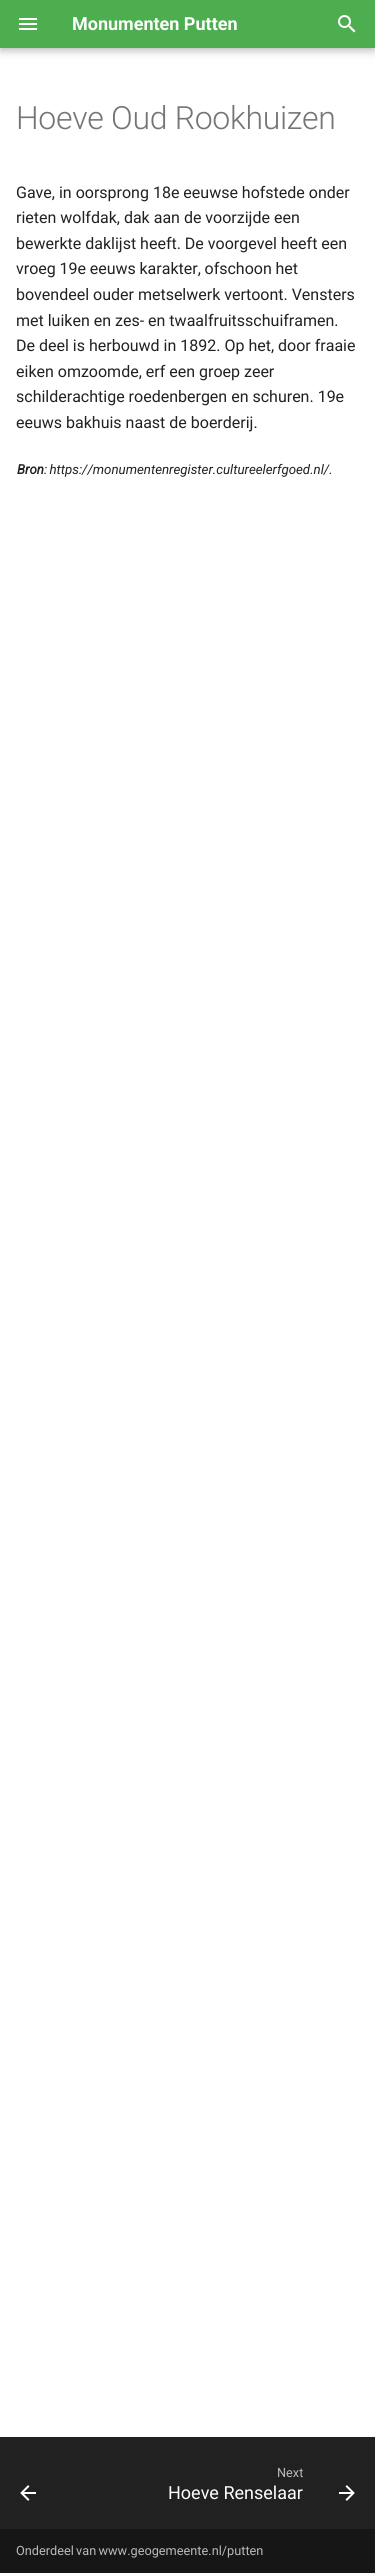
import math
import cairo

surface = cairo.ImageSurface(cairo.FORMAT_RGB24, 375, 2573)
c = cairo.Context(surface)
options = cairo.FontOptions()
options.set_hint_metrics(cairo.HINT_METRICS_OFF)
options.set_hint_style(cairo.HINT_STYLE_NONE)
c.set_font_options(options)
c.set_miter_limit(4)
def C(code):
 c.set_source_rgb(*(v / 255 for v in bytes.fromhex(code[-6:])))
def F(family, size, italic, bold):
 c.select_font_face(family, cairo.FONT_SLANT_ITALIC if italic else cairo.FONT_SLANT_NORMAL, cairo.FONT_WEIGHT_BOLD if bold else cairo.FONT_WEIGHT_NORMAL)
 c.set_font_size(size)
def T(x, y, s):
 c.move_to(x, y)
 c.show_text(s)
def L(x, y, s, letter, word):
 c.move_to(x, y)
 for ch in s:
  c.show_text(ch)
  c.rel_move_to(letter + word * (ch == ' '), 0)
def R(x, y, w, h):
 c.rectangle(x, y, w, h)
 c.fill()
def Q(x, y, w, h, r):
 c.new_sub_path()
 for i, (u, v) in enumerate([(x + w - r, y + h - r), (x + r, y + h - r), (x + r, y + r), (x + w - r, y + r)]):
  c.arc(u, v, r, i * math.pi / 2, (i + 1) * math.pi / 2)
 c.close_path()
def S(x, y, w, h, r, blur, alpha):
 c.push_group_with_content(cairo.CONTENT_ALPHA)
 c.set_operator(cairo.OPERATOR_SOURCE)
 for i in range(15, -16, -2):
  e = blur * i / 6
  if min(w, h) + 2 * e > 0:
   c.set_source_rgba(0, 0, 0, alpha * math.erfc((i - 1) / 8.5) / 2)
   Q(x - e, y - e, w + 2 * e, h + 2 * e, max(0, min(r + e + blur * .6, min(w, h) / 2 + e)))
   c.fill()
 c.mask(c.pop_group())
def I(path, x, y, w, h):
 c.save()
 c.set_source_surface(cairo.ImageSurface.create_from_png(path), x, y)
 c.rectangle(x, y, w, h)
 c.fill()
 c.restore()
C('ffffff')
c.paint()
C('000000')
S(0,4,375,48,0,4,.2)
S(0,0,375,48,0,2,.1)
C('4cae4f')
R(0,0,375,48)
I('1.png',19,18,18,12)
F('Roboto',18,0,1)
C('ffffff')
T(72,30,'Monumenten Putten')
I('2.png',338,15,18,18)
F('Roboto Light',32,0,0)
C('757575')
L(16,129,'Hoeve Oud Rookhuizen',-.3,0)
F('Roboto',16,0,0)
C('212121')
T(16,198,'Gave, in oorsprong 18e eeuwse hofstede onder')
T(16,223,'rieten wolfdak, dak aan de voorzijde een')
T(16,249,'bewerkte daklijst heeft. De voorgevel heeft een')
L(16,274,'vroeg 19e eeuws karakter, ofschoon het',0,-.25)
T(16,300,'bovendeel ouder metselwerk vertoont. Vensters')
T(16,326,'met luiken en zes- en twaalfruitsschuiframen.')
T(16,351,'De deel is herbouwd in 1892. Op het, door fraaie')
T(16,377,'eiken omzoomde, erf een groep zeer')
T(16,402,'schilderachtige roedenbergen en schuren. 19e')
T(16,428,'eeuws bakhuis naast de boerderij.')
F('Roboto',13.3,1,1)
T(17,474,'Bron')
F('Roboto',13.3,1,0)
L(44,474,': https://monumentenregister.cultureelerfgoed.nl/.',0,-1)
R(0,2437,375,92)
I('3.png',20,2485,16,16)
F('Roboto',12.75,0,0)
C('b9b9b9')
T(277,2477,'Next')
F('Roboto',18,0,0)
C('ffffff')
T(168,2499,'Hoeve Renselaar')
I('4.png',339,2485,16,16)
C('161616')
R(0,2529,375,44)
F('Roboto',12.75,0,0)
C('b9b9b9')
L(16,2555,'Onderdeel van www.geogemeente.nl/putten',0,-1)
surface.write_to_png('o.png')
